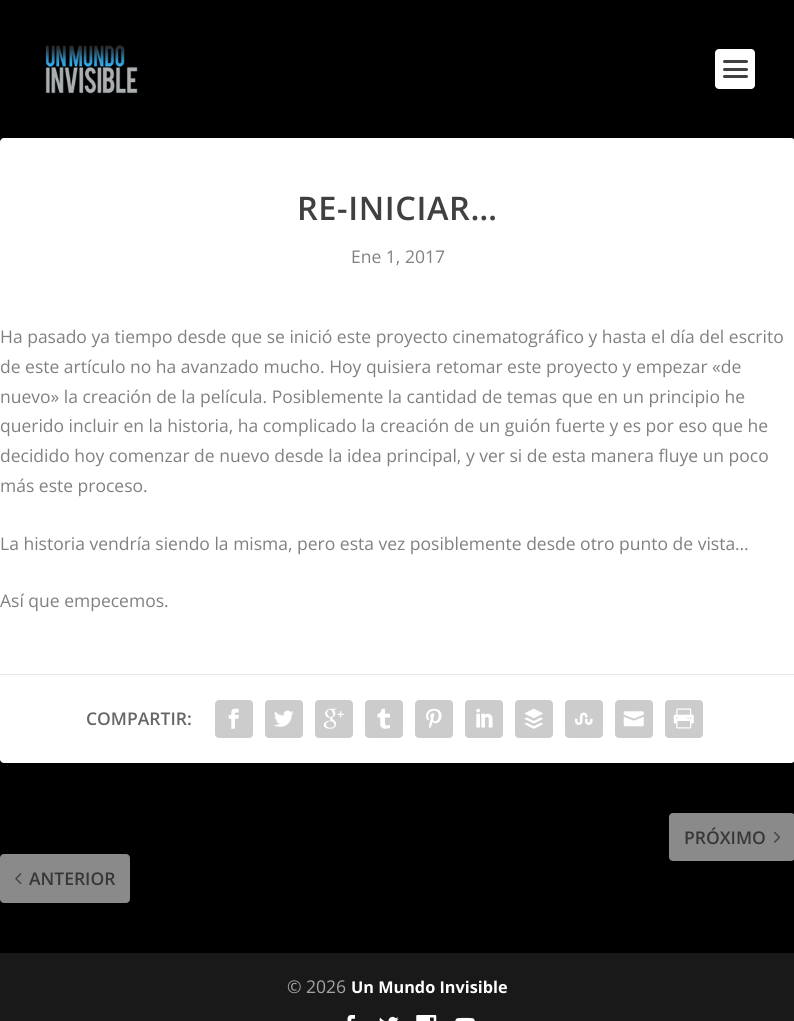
import math
import cairo

surface = cairo.ImageSurface(cairo.FORMAT_RGB24, 794, 1021)
c = cairo.Context(surface)
options = cairo.FontOptions()
options.set_hint_metrics(cairo.HINT_METRICS_OFF)
options.set_hint_style(cairo.HINT_STYLE_NONE)
c.set_font_options(options)
c.set_miter_limit(4)
def C(code):
 c.set_source_rgb(*(v / 255 for v in bytes.fromhex(code[-6:])))
def F(family, size, italic, bold):
 c.select_font_face(family, cairo.FONT_SLANT_ITALIC if italic else cairo.FONT_SLANT_NORMAL, cairo.FONT_WEIGHT_BOLD if bold else cairo.FONT_WEIGHT_NORMAL)
 c.set_font_size(size)
def T(x, y, s):
 c.move_to(x, y)
 c.show_text(s)
def L(x, y, s, letter, word):
 c.move_to(x, y)
 for ch in s:
  c.show_text(ch)
  c.rel_move_to(letter + word * (ch == ' '), 0)
def R(x, y, w, h):
 c.rectangle(x, y, w, h)
 c.fill()
def Q(x, y, w, h, r):
 c.new_sub_path()
 for i, (u, v) in enumerate([(x + w - r, y + h - r), (x + r, y + h - r), (x + r, y + r), (x + w - r, y + r)]):
  c.arc(u, v, r, i * math.pi / 2, (i + 1) * math.pi / 2)
 c.close_path()
def I(path, x, y, w, h):
 c.save()
 c.set_source_surface(cairo.ImageSurface.create_from_png(path), x, y)
 c.rectangle(x, y, w, h)
 c.fill()
 c.restore()
C('000000')
c.paint()
I('1.png',45,45,93,49)
C('ffffff')
Q(715,49,40,40,4)
c.fill()
C('404040')
Q(723,60,25,3,1.5)
c.fill()
Q(723,68,25,3,1.5)
c.fill()
Q(723,75,25,3,1.5)
c.fill()
C('ffffff')
Q(0,138,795,625,4)
c.fill()
F('Open Sans SemiBold',32.5,0,0)
C('404040')
L(297,220,'RE-INICIAR…',.6,0)
F('Open Sans',17.5,0,0)
C('808080')
T(351,263,'Ene 1, 2017')
T(0,343,'Ha pasado ya tiempo desde que se inició este proyecto cinematográfico y hasta el día del escrito')
T(0,373,'de este artículo no ha avanzado mucho. Hoy quisiera retomar este proyecto y empezar «de')
T(0,403,'nuevo» la creación de la película. Posiblemente la cantidad de temas que en un principio he')
T(0,432,'querido incluir en la historia, ha complicado la creación de un guión fuerte y es por eso que he')
T(0,462,'decidido hoy comenzar de nuevo desde la idea principal, y ver si de esta manera fluye un poco')
T(0,492,'más este proceso.')
T(0,550,'La historia vendría siendo la misma, pero esta vez posiblemente desde otro punto de vista…')
T(0,607,'Así que empecemos.')
C('e6e6e6')
R(0,674,794,1)
F('Open Sans SemiBold',17.5,0,0)
C('666666')
T(86,725,'COMPARTIR:')
C('cccccc')
Q(215,700,38,38,4)
c.fill()
I('2.png',228,708,11,21)
Q(265,700,38,38,4)
c.fill()
I('3.png',274,710,20,17)
Q(315,700,38,38,4)
c.fill()
I('4.png',323,708,21,21)
Q(365,700,38,38,4)
c.fill()
I('5.png',377,708,13,21)
Q(415,700,38,38,4)
c.fill()
I('6.png',426,708,16,21)
Q(465,700,38,38,4)
c.fill()
I('7.png',476,708,17,20)
Q(515,700,38,38,4)
c.fill()
I('8.png',524,708,19,21)
Q(565,700,38,38,4)
c.fill()
I('9.png',575,712,18,13)
Q(615,700,38,38,4)
c.fill()
I('10.png',623,711,21,16)
Q(665,700,38,38,4)
c.fill()
I('11.png',673,708,21,21)
C('8a8a8a')
Q(669,813,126,48,4)
c.fill()
C('373737')
T(684,844,'PRÓXIMO')
I('12.png',774,832,7,11)
C('8a8a8a')
Q(0,854,130,49,4)
c.fill()
I('13.png',15,873,7,11)
C('373737')
T(29,885,'ANTERIOR')
C('191919')
R(0,953,794,68)
F('Open Sans',17.5,0,0)
C('a3a3a3')
T(287,993,'© 2026')
F('Open Sans',16.25,0,1)
C('ffffff')
T(351,993,'Un Mundo Invisible')
I('14.png',347,1015,8,6)
I('15.png',379,1016,20,5)
I('16.png',416,1015,21,6)
I('17.png',455,1017,20,4)
surface.write_to_png('o.png')
